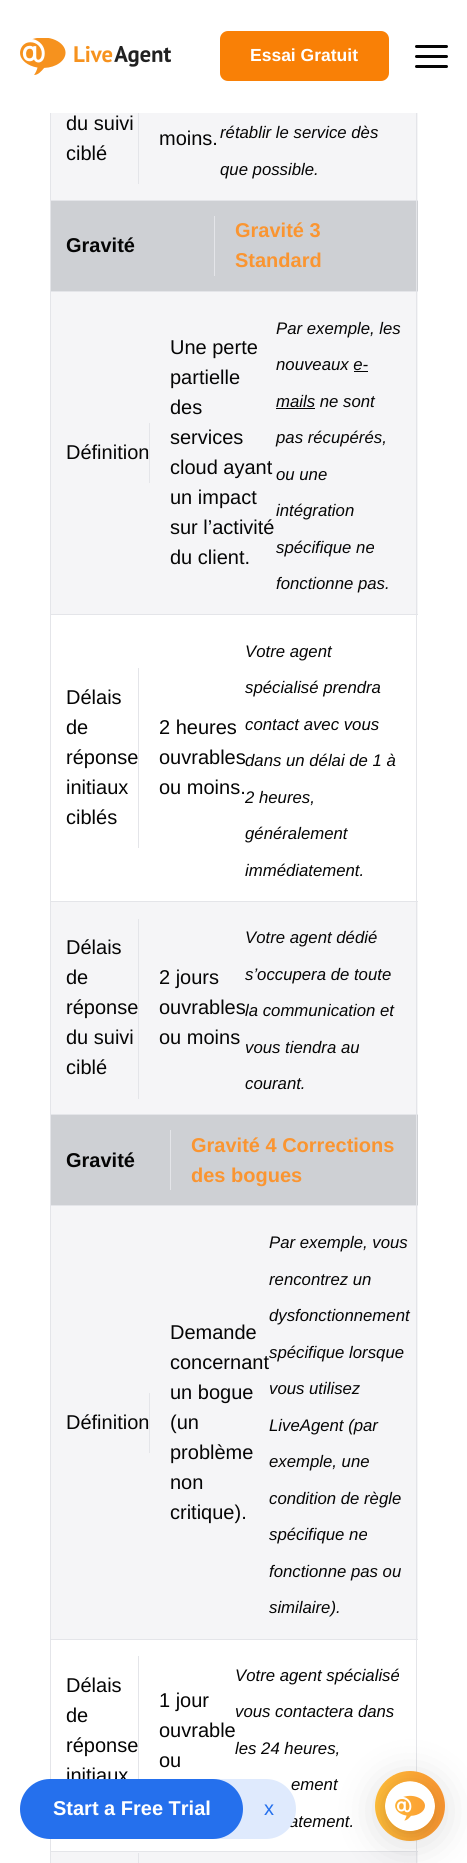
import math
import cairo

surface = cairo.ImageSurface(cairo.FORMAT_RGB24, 467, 1863)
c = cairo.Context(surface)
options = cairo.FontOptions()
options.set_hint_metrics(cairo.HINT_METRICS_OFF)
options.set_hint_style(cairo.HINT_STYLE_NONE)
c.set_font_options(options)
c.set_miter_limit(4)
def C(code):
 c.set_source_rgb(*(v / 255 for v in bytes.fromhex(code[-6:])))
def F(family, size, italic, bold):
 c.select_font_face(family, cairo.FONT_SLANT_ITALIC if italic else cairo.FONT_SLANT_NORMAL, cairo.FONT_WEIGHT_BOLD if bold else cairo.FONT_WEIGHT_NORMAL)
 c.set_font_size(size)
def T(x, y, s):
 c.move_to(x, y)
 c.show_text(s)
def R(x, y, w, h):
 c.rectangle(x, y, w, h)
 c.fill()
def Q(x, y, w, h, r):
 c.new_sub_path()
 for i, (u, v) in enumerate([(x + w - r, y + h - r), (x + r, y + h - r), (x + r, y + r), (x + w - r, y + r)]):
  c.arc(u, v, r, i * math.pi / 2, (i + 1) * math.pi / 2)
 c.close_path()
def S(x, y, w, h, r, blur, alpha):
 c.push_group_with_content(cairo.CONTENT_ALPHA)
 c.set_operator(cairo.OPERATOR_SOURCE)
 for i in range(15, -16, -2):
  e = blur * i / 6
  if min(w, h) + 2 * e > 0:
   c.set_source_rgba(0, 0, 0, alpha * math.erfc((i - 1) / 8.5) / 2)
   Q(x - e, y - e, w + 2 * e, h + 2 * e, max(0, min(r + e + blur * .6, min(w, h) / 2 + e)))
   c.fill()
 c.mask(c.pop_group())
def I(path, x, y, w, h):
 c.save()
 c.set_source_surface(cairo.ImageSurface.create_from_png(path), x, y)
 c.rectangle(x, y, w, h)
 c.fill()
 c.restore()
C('ffffff')
c.paint()
I('1.png',20,38,151,37)
C('f98006')
Q(220,31,169,50,8)
c.fill()
F('Liberation Sans',17.5,0,1)
C('ffffff')
T(250,61,'Essai Gratuit')
C('050505')
Q(415,45,33,3,1.5)
c.fill()
Q(415,55,33,3,1.5)
c.fill()
Q(415,65,33,3,1.5)
c.fill()
C('f5f5f7')
R(51,113,367,87)
C('e4e5e9')
R(416,113,1,87)
R(50,113,1,87)
F('Liberation Sans',20,0,0)
C('050505')
T(66,130,'du suivi')
C('e4e5e9')
R(138,113,1,71)
C('050505')
T(66,160,'ciblé')
T(159,145,'moins.')
F('Liberation Sans',16.75,1,0)
T(220,138,'rétablir le service dès')
T(220,175,'que possible.')
C('ced0d4')
R(51,201,367,90)
C('e4e5e9')
R(50,200,368,1)
R(416,200,1,91)
R(50,200,1,91)
F('Liberation Sans',20,0,1)
C('050505')
T(66,252,'Gravité')
C('e4e5e9')
R(214,216,1,60)
C('fa9531')
T(235,237,'Gravité 3')
T(235,267,'Standard')
C('f5f5f7')
R(51,292,367,322)
C('e4e5e9')
R(50,291,368,1)
R(416,291,1,323)
R(50,291,1,323)
F('Liberation Sans',20,0,0)
C('050505')
T(170,354,'Une perte')
F('Liberation Sans',16.75,1,0)
T(276,334,'Par exemple, les')
T(276,370,'nouveaux e-')
R(354,371,14,1)
T(276,407,'mails ne sont')
R(276,408,39,1)
T(276,443,'pas récupérés,')
T(276,480,'ou une')
T(276,516,'intégration')
T(276,553,'spécifique ne')
T(276,589,'fonctionne pas.')
F('Liberation Sans',20,0,0)
T(170,384,'partielle')
T(170,414,'des')
T(170,444,'services')
T(66,459,'Définition')
C('e4e5e9')
R(149,423,1,60)
C('050505')
T(170,474,'cloud ayant')
T(170,504,'un impact')
T(170,534,'sur l’activité')
T(170,564,'du client.')
C('e4e5e9')
R(50,614,368,1)
R(416,614,1,287)
R(50,614,1,287)
C('050505')
T(66,704,'Délais')
C('e4e5e9')
R(138,668,1,180)
C('050505')
T(66,734,'de')
T(66,764,'réponse')
T(66,794,'initiaux')
T(66,824,'ciblés')
T(159,734,'2 heures')
F('Liberation Sans',16.75,1,0)
T(245,657,'Votre agent')
T(245,693,'spécialisé prendra')
T(245,730,'contact avec vous')
T(245,766,'dans un délai de 1 à')
T(245,803,'2 heures,')
T(245,839,'généralement')
T(245,876,'immédiatement.')
F('Liberation Sans',20,0,0)
T(159,764,'ouvrables')
T(159,794,'ou moins.')
C('f5f5f7')
R(51,902,367,212)
C('e4e5e9')
R(50,901,368,1)
R(416,901,1,213)
R(50,901,1,213)
C('050505')
T(66,954,'Délais')
C('e4e5e9')
R(138,919,1,180)
C('050505')
T(66,984,'de')
T(66,1014,'réponse')
T(66,1044,'du suivi')
T(66,1074,'ciblé')
T(159,984,'2 jours')
F('Liberation Sans',16.75,1,0)
T(245,943,'Votre agent dédié')
T(245,980,'s’occupera de toute')
T(245,1016,'la communication et')
T(245,1053,'vous tiendra au')
T(245,1089,'courant.')
F('Liberation Sans',20,0,0)
T(159,1014,'ouvrables')
T(159,1044,'ou moins')
C('ced0d4')
R(51,1115,367,90)
C('e4e5e9')
R(50,1114,368,1)
R(416,1114,1,91)
R(50,1114,1,91)
F('Liberation Sans',20,0,1)
C('050505')
T(66,1167,'Gravité')
C('e4e5e9')
R(170,1130,1,60)
C('fa9531')
T(191,1152,'Gravité 4 Corrections')
T(191,1182,'des bogues')
C('f5f5f7')
R(51,1206,367,433)
C('e4e5e9')
R(50,1205,368,1)
R(416,1205,1,434)
R(50,1205,1,434)
F('Liberation Sans',20,0,0)
C('050505')
T(170,1339,'Demande')
F('Liberation Sans',16.75,1,0)
T(269,1248,'Par exemple, vous')
T(269,1285,'rencontrez un')
T(269,1321,'dysfonctionnement')
F('Liberation Sans',20,0,0)
T(170,1369,'concernant')
F('Liberation Sans',16.75,1,0)
T(269,1358,'spécifique lorsque')
T(269,1394,'vous utilisez')
T(269,1431,'LiveAgent (par')
T(269,1467,'exemple, une')
T(269,1504,'condition de règle')
T(269,1540,'spécifique ne')
T(269,1577,'fonctionne pas ou')
T(269,1613,'similaire).')
F('Liberation Sans',20,0,0)
T(170,1399,'un bogue')
T(66,1429,'Définition')
C('e4e5e9')
R(149,1393,1,60)
C('050505')
T(170,1429,'(un')
T(170,1459,'problème')
T(170,1489,'non')
T(170,1519,'critique).')
C('e4e5e9')
R(50,1639,368,1)
R(416,1639,1,212)
R(50,1639,1,212)
C('050505')
T(66,1692,'Délais')
C('e4e5e9')
R(138,1656,1,123)
C('050505')
T(66,1722,'de')
T(66,1752,'réponse')
T(66,1782,'initiaux')
T(159,1707,'1 jour')
F('Liberation Sans',16.75,1,0)
T(235,1681,'Votre agent spécialisé')
T(235,1717,'vous contactera dans')
T(235,1754,'les 24 heures,')
T(291,1790,'ement')
T(289,1827,'atement.')
F('Liberation Sans',20,0,0)
T(159,1737,'ouvrable')
T(159,1767,'ou')
C('f5f5f7')
R(51,1852,367,11)
C('e4e5e9')
R(50,1851,368,1)
R(416,1851,1,12)
R(50,1851,1,12)
R(138,1853,1,10)
C('dfeafd')
Q(189,1779,107,60,30)
c.fill()
C('2570ed')
Q(20,1779,223,60,30)
c.fill()
F('Liberation Sans',20,0,1)
C('ffffff')
T(53,1815,'Start a Free Trial')
F('Liberation Sans',20,0,0)
C('2570ed')
T(264,1815,'x')
C('000000')
S(375,1776,70,70,35,20,.12)
gradient = cairo.LinearGradient(375,1806,445,1806)
gradient.add_color_stop_rgba(0,1,0.741,0.224,1)
gradient.add_color_stop_rgba(1,0.98,0.584,0.192,1)
c.set_source(gradient)
c.arc(410,1806,35,0,2 * math.pi)
c.fill()
c.save()
Q(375,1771,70,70,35)
c.clip()
c.set_fill_rule(cairo.FILL_RULE_EVEN_ODD)
c.new_path()
c.move_to(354,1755)
c.line_to(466,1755)
c.line_to(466,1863)
c.line_to(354,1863)
c.close_path()
c.move_to(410,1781)
c.curve_to(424,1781,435,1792,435,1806)
c.curve_to(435,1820,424,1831,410,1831)
c.curve_to(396,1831,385,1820,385,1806)
c.curve_to(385,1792,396,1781,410,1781)
c.close_path()
c.clip()
C('000000')
S(385,1786,50,50,25,10,.15)
c.restore()
I('2.png',385,1781,50,50)
surface.write_to_png('o.png')
